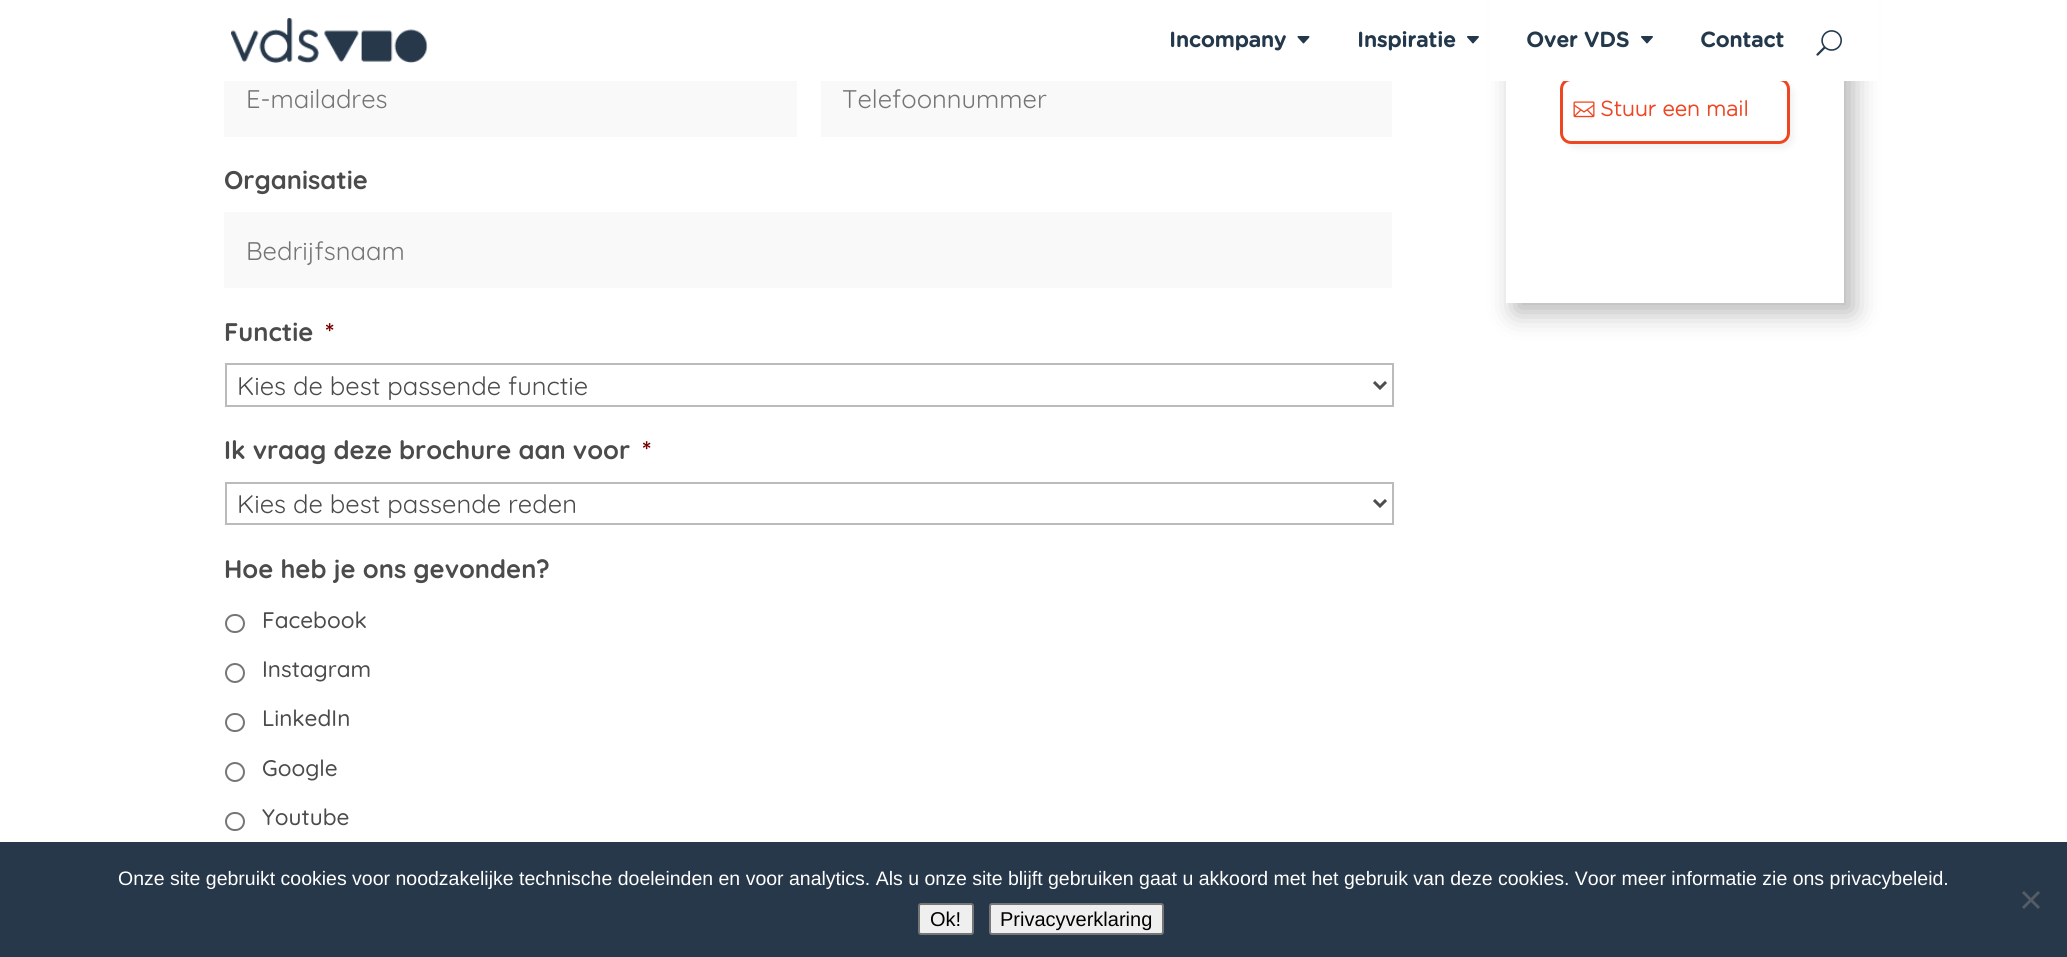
import math
import cairo

surface = cairo.ImageSurface(cairo.FORMAT_RGB24, 2067, 957)
c = cairo.Context(surface)
options = cairo.FontOptions()
options.set_hint_metrics(cairo.HINT_METRICS_OFF)
options.set_hint_style(cairo.HINT_STYLE_NONE)
c.set_font_options(options)
c.set_miter_limit(4)
def C(code):
 c.set_source_rgb(*(v / 255 for v in bytes.fromhex(code[-6:])))
def F(family, size, italic, bold):
 c.select_font_face(family, cairo.FONT_SLANT_ITALIC if italic else cairo.FONT_SLANT_NORMAL, cairo.FONT_WEIGHT_BOLD if bold else cairo.FONT_WEIGHT_NORMAL)
 c.set_font_size(size)
def T(x, y, s):
 c.move_to(x, y)
 c.show_text(s)
def R(x, y, w, h):
 c.rectangle(x, y, w, h)
 c.fill()
def Q(x, y, w, h, r):
 c.new_sub_path()
 for i, (u, v) in enumerate([(x + w - r, y + h - r), (x + r, y + h - r), (x + r, y + r), (x + w - r, y + r)]):
  c.arc(u, v, r, i * math.pi / 2, (i + 1) * math.pi / 2)
 c.close_path()
def S(x, y, w, h, r, blur, alpha):
 c.push_group_with_content(cairo.CONTENT_ALPHA)
 c.set_operator(cairo.OPERATOR_SOURCE)
 for i in range(15, -16, -2):
  e = blur * i / 6
  if min(w, h) + 2 * e > 0:
   c.set_source_rgba(0, 0, 0, alpha * math.erfc((i - 1) / 8.5) / 2)
   Q(x - e, y - e, w + 2 * e, h + 2 * e, max(0, min(r + e + blur * .6, min(w, h) / 2 + e)))
   c.fill()
 c.mask(c.pop_group())
def I(path, x, y, w, h):
 c.save()
 c.set_source_surface(cairo.ImageSurface.create_from_png(path), x, y)
 c.rectangle(x, y, w, h)
 c.fill()
 c.restore()
C('ffffff')
c.paint()
C('000000')
S(1515,-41,338,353,0,13.5,.3)
C('ffffff')
R(1506,81,338,222)
C('000000')
S(1565,83,229,66,11,3,.05)
C('ffffff')
Q(1561.5,79.5,227,63,9.5)
c.fill_preserve()
C('ee4620')
c.set_line_width(3)
c.stroke()
C('ffffff')
R(1490,0,388,81)
I('1.png',231,18,197,45)
F('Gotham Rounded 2',21,0,1)
C('23384b')
T(1169,47,'Incompany')
I('2.png',1297,36,13,8)
T(1357,47,'Inspiratie')
I('3.png',1467,36,12,8)
T(1526,47,'Over VDS')
I('3.png',1641,36,12,8)
T(1700,47,'Contact')
I('4.png',1816,30,26,26)
C('f9f9f9')
R(224,81,573,56)
F('Quicksand',25.5,0,0)
C('757575')
T(246,108,'E-mailadres')
C('f9f9f9')
R(821,81,571,56)
C('757575')
T(842,108,'Telefoonnummer')
F('Quicksand',25.5,0,1)
C('4b4b4b')
T(224,189,'Organisatie')
C('f9f9f9')
R(224,212,1168,76)
F('Quicksand',25.5,0,0)
C('757575')
T(246,260,'Bedrijfsnaam')
F('Quicksand',25.5,0,1)
C('4b4b4b')
T(224,341,'Functie')
C('790000')
T(325,341,'*')
c.rectangle(226,364,1167,42)
C('bbbbbb')
c.set_line_width(2)
c.stroke()
c.new_path()
c.move_to(1374,382)
c.line_to(1380,388)
c.line_to(1386,382)
C('4e4e4e')
c.set_line_width(3)
c.stroke()
F('Quicksand',25.5,0,0)
C('4b4b4b')
T(237,395,'Kies de best passende functie')
F('Quicksand',25.5,0,1)
T(224,459,'Ik vraag deze brochure aan voor')
C('790000')
T(642,459,'*')
c.rectangle(226,483,1167,41)
C('bbbbbb')
c.set_line_width(2)
c.stroke()
c.new_path()
c.move_to(1374,500)
c.line_to(1380,506)
c.line_to(1386,500)
C('4e4e4e')
c.set_line_width(3)
c.stroke()
F('Quicksand',25.5,0,0)
C('4b4b4b')
T(237,513,'Kies de best passende reden')
F('Quicksand',25.5,0,1)
T(224,578,'Hoe heb je ons gevonden?')
Q(226,615,18,17,8.5)
C('767676')
c.set_line_width(2)
c.stroke()
F('Quicksand Medium',22.5,0,0)
C('4b4b4b')
T(262,628,'Facebook')
c.new_path()
c.arc(235,673,9,0,2 * math.pi)
C('767676')
c.stroke()
C('4b4b4b')
T(262,677,'Instagram')
Q(226,714,18,17,8.5)
C('767676')
c.stroke()
C('4b4b4b')
T(262,726,'LinkedIn')
c.new_path()
c.arc(235,772,9,0,2 * math.pi)
C('767676')
c.stroke()
C('4b4b4b')
T(262,776,'Google')
Q(226,813,18,17,8.5)
C('767676')
c.stroke()
C('4b4b4b')
T(262,825,'Youtube')
I('5.png',1573,101,22,17)
F('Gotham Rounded',21,0,1)
C('ee4622')
T(1600,116,'Stuur een mail')
C('27384a')
R(0,842,2067,115)
F('Liberation Sans',19.5,0,0)
C('ffffff')
T(118,885,'Onze site gebruikt cookies voor noodzakelijke technische doeleinden en voor analytics. Als u onze site blijft gebruiken gaat u akkoord met het gebruik van deze cookies. Voor meer informatie zie ons privacybeleid.')
C('545c65')
c.new_path()
c.move_to(2038,891)
c.line_to(2040,893)
c.line_to(2024,909)
c.line_to(2022,907)
c.close_path()
c.fill()
c.new_path()
c.move_to(2022,893)
c.line_to(2024,891)
c.line_to(2040,907)
c.line_to(2038,909)
c.close_path()
c.fill()
C('efefef')
Q(919,904,54,30,2)
c.fill_preserve()
C('767676')
c.stroke()
F('Liberation Sans',20,0,0)
C('000000')
T(930,926,'Ok!')
C('efefef')
Q(990,904,173,30,2)
c.fill_preserve()
C('767676')
c.stroke()
C('000000')
T(1000,926,'Privacyverklaring')
surface.write_to_png('o.png')
